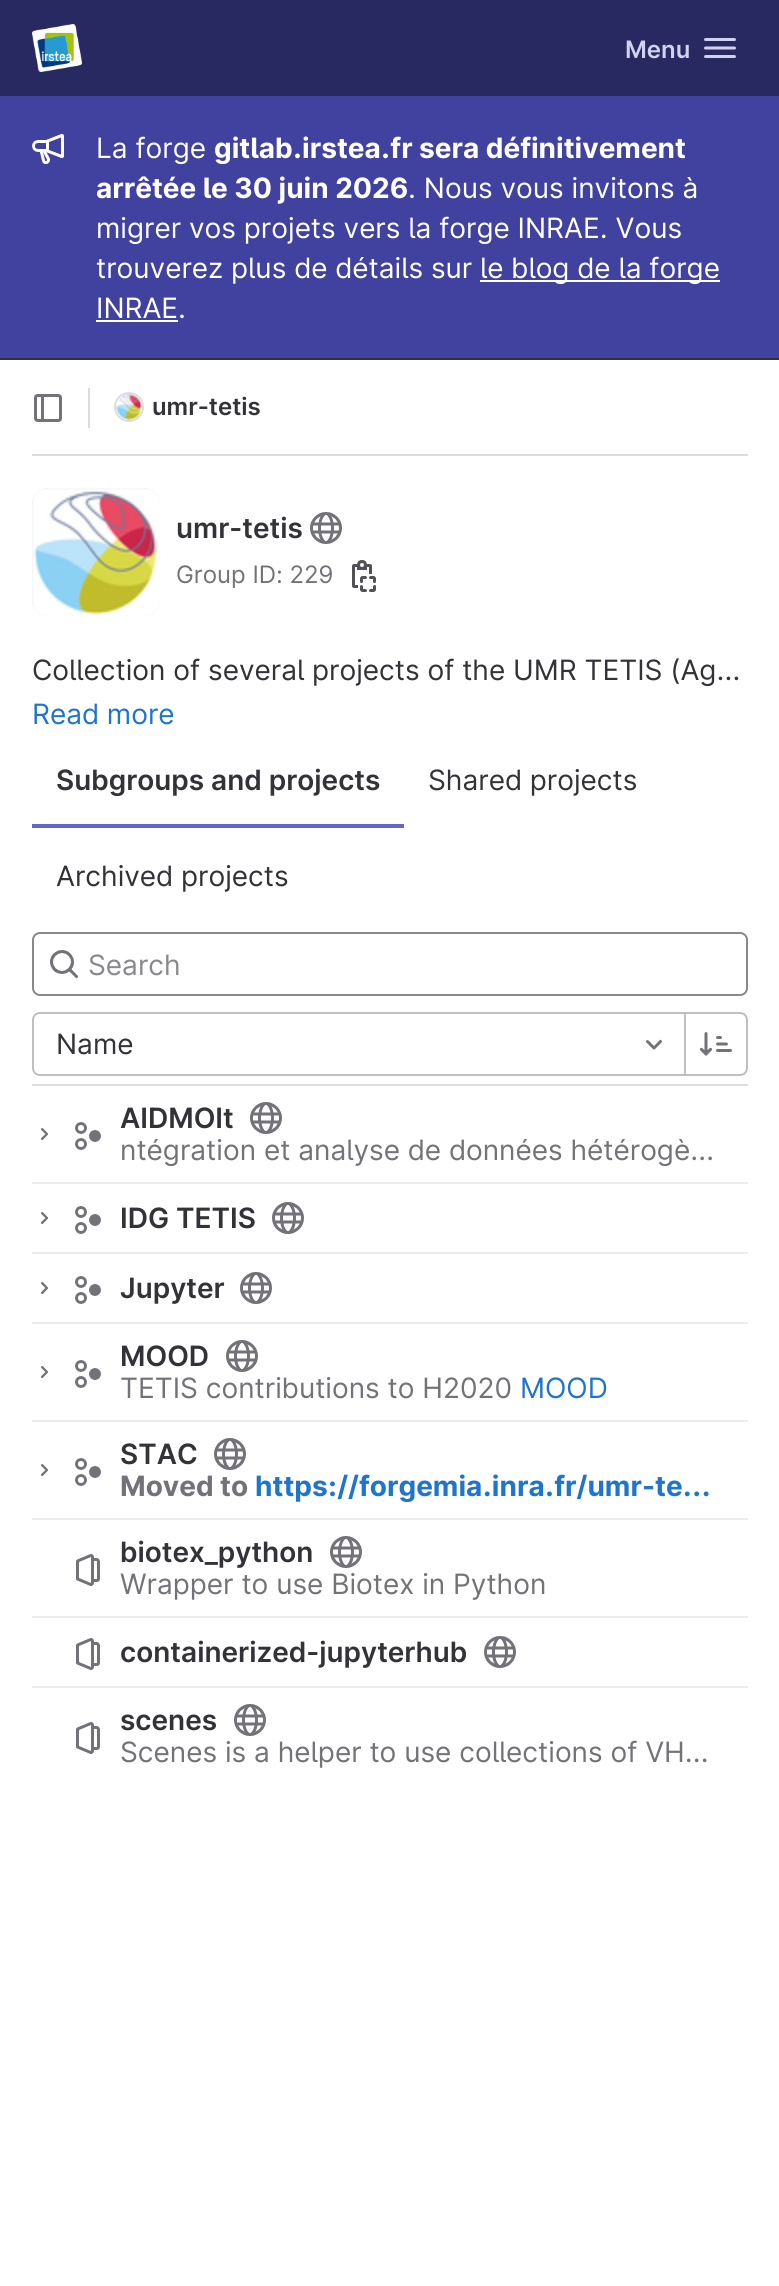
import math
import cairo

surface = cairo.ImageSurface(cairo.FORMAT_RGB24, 779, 2286)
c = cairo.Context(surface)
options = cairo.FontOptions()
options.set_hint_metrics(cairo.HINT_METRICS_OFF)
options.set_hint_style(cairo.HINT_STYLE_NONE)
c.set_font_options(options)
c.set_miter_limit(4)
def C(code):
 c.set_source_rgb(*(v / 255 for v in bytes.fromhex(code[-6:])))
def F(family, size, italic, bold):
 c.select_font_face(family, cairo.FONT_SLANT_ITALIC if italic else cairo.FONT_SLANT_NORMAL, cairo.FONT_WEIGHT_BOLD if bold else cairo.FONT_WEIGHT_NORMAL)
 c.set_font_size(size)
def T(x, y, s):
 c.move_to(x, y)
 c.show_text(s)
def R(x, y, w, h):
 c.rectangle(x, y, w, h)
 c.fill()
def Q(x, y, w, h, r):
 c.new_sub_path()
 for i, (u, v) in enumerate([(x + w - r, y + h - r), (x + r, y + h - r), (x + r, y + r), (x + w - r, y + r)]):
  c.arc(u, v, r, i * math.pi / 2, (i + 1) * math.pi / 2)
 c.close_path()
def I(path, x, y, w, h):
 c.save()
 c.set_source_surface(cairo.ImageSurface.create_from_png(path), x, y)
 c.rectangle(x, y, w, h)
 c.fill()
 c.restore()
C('ffffff')
c.paint()
C('292961')
R(0,0,779,96)
I('1.png',32,24,50,48)
F('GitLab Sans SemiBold',24,0,0)
C('d1d1f0')
T(625,58,'Menu')
I('2.png',704,38,32,20)
C('41419f')
R(0,96,779,262)
C('333238')
R(0,358,779,2)
I('3.png',32,134,32,30)
F('GitLab Sans',28,0,0)
C('ffffff')
T(96,158,'La forge')
F('GitLab Sans',28,0,1)
T(214,158,'gitlab.irstea.fr sera définitivement')
T(96,198,'arrêtée le 30 juin 2026')
F('GitLab Sans',28,0,0)
T(408,198,'. Nous vous invitons à')
T(96,238,'migrer vos projets vers la forge INRAE. Vous')
T(96,278,'trouverez plus de détails sur')
R(480,280,240,2)
T(480,278,'le blog de la forge')
T(96,318,'INRAE.')
R(96,320,82,2)
C('dcdcde')
R(32,454,716,2)
I('4.png',34,394,28,28)
R(88,388,2,40)
c.arc(129,407,14,0,2 * math.pi)
c.stroke()
I('5.png',116,394,26,26)
F('GitLab Sans SemiBold',24,0,0)
C('333238')
T(152,415,'umr-tetis')
Q(33,489,126,126,15)
C('e9e9e9')
c.stroke()
I('6.png',32,488,128,128)
F('GitLab Sans SemiBold',28,0,0)
C('333238')
T(176,538,'umr-tetis')
I('7.png',310,512,32,32)
F('GitLab Sans',24,0,0)
C('737278')
T(176,583,'Group ID: 229')
I('8.png',352,560,24,32)
F('GitLab Sans',28,0,0)
C('333238')
T(32,680,'Collection of several projects of the UMR TETIS (Ag…')
C('1f75cb')
T(32,724,'Read more')
C('dcdcde')
R(32,1084,716,2)
C('6666c4')
R(32,824,372,4)
F('GitLab Sans SemiBold',28,0,0)
C('333238')
T(56,790,'Subgroups and projects')
F('GitLab Sans',28,0,0)
T(428,790,'Shared projects')
T(56,886,'Archived projects')
Q(33,933,714,62,7)
C('89888d')
c.stroke()
I('9.png',50,950,29,29)
T(88,975,'Search')
c.new_path()
c.move_to(40,1013)
c.line_to(685,1013)
c.line_to(685,1075)
c.line_to(40,1075)
c.curve_to(36,1075,33,1072,33,1068)
c.line_to(33,1020)
c.curve_to(33,1016,36,1013,40,1013)
c.close_path()
C('bfbfc3')
c.stroke()
C('333238')
T(56,1054,'Name')
I('10.png',646,1039,16,11)
C('ffffff')
c.new_path()
c.move_to(685,1013)
c.line_to(740,1013)
c.curve_to(744,1013,747,1016,747,1020)
c.line_to(747,1068)
c.curve_to(747,1072,744,1075,740,1075)
c.line_to(685,1075)
c.close_path()
c.fill_preserve()
C('bfbfc3')
c.stroke()
I('11.png',700,1032,32,24)
C('ececef')
R(32,1182,716,2)
I('12.png',41,1128,8,12)
I('13.png',75,1122,26,28)
F('GitLab Sans SemiBold',28,0,0)
C('333238')
T(120,1128,'AIDMOIt')
I('14.png',250,1102,32,32)
F('GitLab Sans',28,0,0)
C('737278')
T(120,1160,'ntégration et analyse de données hétérogè…')
C('ececef')
R(32,1252,716,2)
I('12.png',41,1212,8,12)
I('13.png',75,1206,26,28)
F('GitLab Sans SemiBold',28,0,0)
C('333238')
T(120,1228,'IDG TETIS')
I('7.png',272,1202,32,32)
C('ececef')
R(32,1322,716,2)
I('12.png',41,1282,8,12)
I('13.png',75,1276,26,28)
C('333238')
T(120,1298,'Jupyter')
I('15.png',240,1272,32,32)
C('ececef')
R(32,1420,716,2)
I('12.png',41,1366,8,12)
I('13.png',75,1360,26,28)
C('333238')
T(120,1366,'MOOD')
I('16.png',226,1340,32,32)
F('GitLab Sans',28,0,0)
C('737278')
T(120,1398,'TETIS contributions to H2020')
C('1f75cb')
T(520,1398,'MOOD')
C('ececef')
R(32,1518,716,2)
I('12.png',41,1464,8,12)
I('13.png',75,1458,26,28)
F('GitLab Sans SemiBold',28,0,0)
C('333238')
T(120,1464,'STAC')
I('7.png',214,1438,32,32)
F('GitLab Sans',28,0,1)
C('737278')
T(120,1496,'Moved to')
C('1f75cb')
T(255,1496,'https://forgemia.inra.fr/umr-te…')
C('ececef')
R(32,1616,716,2)
I('17.png',76,1554,24,32)
F('GitLab Sans SemiBold',28,0,0)
C('333238')
T(120,1562,'biotex_python')
I('7.png',330,1536,32,32)
F('GitLab Sans',28,0,0)
C('737278')
T(120,1594,'Wrapper to use Biotex in Python')
C('ececef')
R(32,1686,716,2)
I('17.png',76,1638,24,32)
F('GitLab Sans SemiBold',28,0,0)
C('333238')
T(120,1662,'containerized-jupyterhub')
I('18.png',484,1636,32,32)
I('17.png',76,1722,24,32)
T(120,1730,'scenes')
I('19.png',234,1704,32,32)
F('GitLab Sans',28,0,0)
C('737278')
T(120,1762,'Scenes is a helper to use collections of VH…')
surface.write_to_png('o.png')
